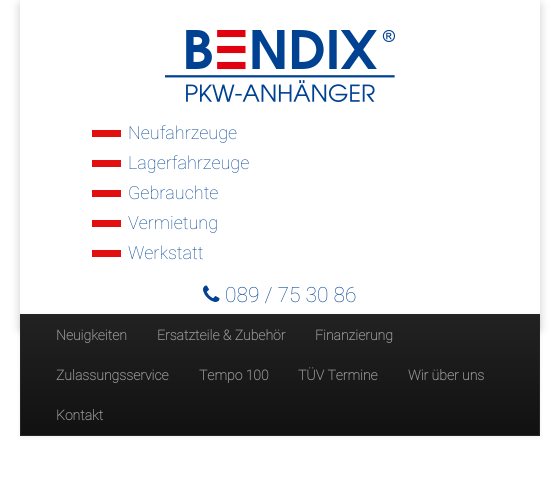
import math
import cairo

surface = cairo.ImageSurface(cairo.FORMAT_RGB24, 560, 504)
c = cairo.Context(surface)
options = cairo.FontOptions()
options.set_hint_metrics(cairo.HINT_METRICS_OFF)
options.set_hint_style(cairo.HINT_STYLE_NONE)
c.set_font_options(options)
c.set_miter_limit(4)
def C(code):
 c.set_source_rgb(*(v / 255 for v in bytes.fromhex(code[-6:])))
def F(family, size, italic, bold):
 c.select_font_face(family, cairo.FONT_SLANT_ITALIC if italic else cairo.FONT_SLANT_NORMAL, cairo.FONT_WEIGHT_BOLD if bold else cairo.FONT_WEIGHT_NORMAL)
 c.set_font_size(size)
def T(x, y, s):
 c.move_to(x, y)
 c.show_text(s)
def R(x, y, w, h):
 c.rectangle(x, y, w, h)
 c.fill()
def Q(x, y, w, h, r):
 c.new_sub_path()
 for i, (u, v) in enumerate([(x + w - r, y + h - r), (x + r, y + h - r), (x + r, y + r), (x + w - r, y + r)]):
  c.arc(u, v, r, i * math.pi / 2, (i + 1) * math.pi / 2)
 c.close_path()
def S(x, y, w, h, r, blur, alpha):
 c.push_group_with_content(cairo.CONTENT_ALPHA)
 c.set_operator(cairo.OPERATOR_SOURCE)
 for i in range(15, -16, -2):
  e = blur * i / 6
  if min(w, h) + 2 * e > 0:
   c.set_source_rgba(0, 0, 0, alpha * math.erfc((i - 1) / 8.5) / 2)
   Q(x - e, y - e, w + 2 * e, h + 2 * e, max(0, min(r + e + blur * .6, min(w, h) / 2 + e)))
   c.fill()
 c.mask(c.pop_group())
def I(path, x, y, w, h):
 c.save()
 c.set_source_surface(cairo.ImageSurface.create_from_png(path), x, y)
 c.rectangle(x, y, w, h)
 c.fill()
 c.restore()
C('ffffff')
c.paint()
c.save()
c.set_fill_rule(cairo.FILL_RULE_EVEN_ODD)
c.new_path()
c.move_to(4,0)
c.line_to(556,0)
c.line_to(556,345)
c.line_to(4,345)
c.close_path()
c.move_to(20,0)
c.line_to(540,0)
c.line_to(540,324)
c.line_to(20,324)
c.close_path()
c.clip()
C('000000')
S(20,5,520,324,0,5,.2)
c.restore()
I('1.png',165,30,230,72)
C('e20f10')
R(92,130,29,7)
F('Roboto Thin',18,0,0)
C('004193')
T(128,139,'Neufahrzeuge')
C('e20f10')
R(92,160,29,7)
C('004193')
T(128,169,'Lagerfahrzeuge')
C('e20f10')
R(92,190,29,7)
C('004193')
T(128,199,'Gebrauchte')
C('e20f10')
R(92,220,29,7)
C('004193')
T(128,229,'Vermietung')
C('e20f10')
R(92,250,29,7)
C('004193')
T(128,259,'Werkstatt')
I('2.png',203,285,17,17)
F('Roboto Thin',21,0,0)
T(225,302,'089 / 75 30 86')
C('000000')
S(20,315,520,122,0,2,.07)
gradient = cairo.LinearGradient(280,315,280,435)
gradient.add_color_stop_rgba(0,0.133,0.133,0.133,1)
gradient.add_color_stop_rgba(1,0.067,0.067,0.067,1)
c.set_source(gradient)
R(21,315,518,120)
c.rectangle(20.5,314.5,519,121)
C('252525')
c.set_line_width(1)
c.stroke()
F('Roboto',14,0,1)
C('999999')
T(56,340,'Neuigkeiten')
T(157,340,'Ersatzteile & Zubehör')
T(315,340,'Finanzierung')
T(56,380,'Zulassungsservice')
T(199,380,'Tempo 100')
T(298,380,'TÜV Termine')
T(408,380,'Wir über uns')
T(56,420,'Kontakt')
surface.write_to_png('o.png')
